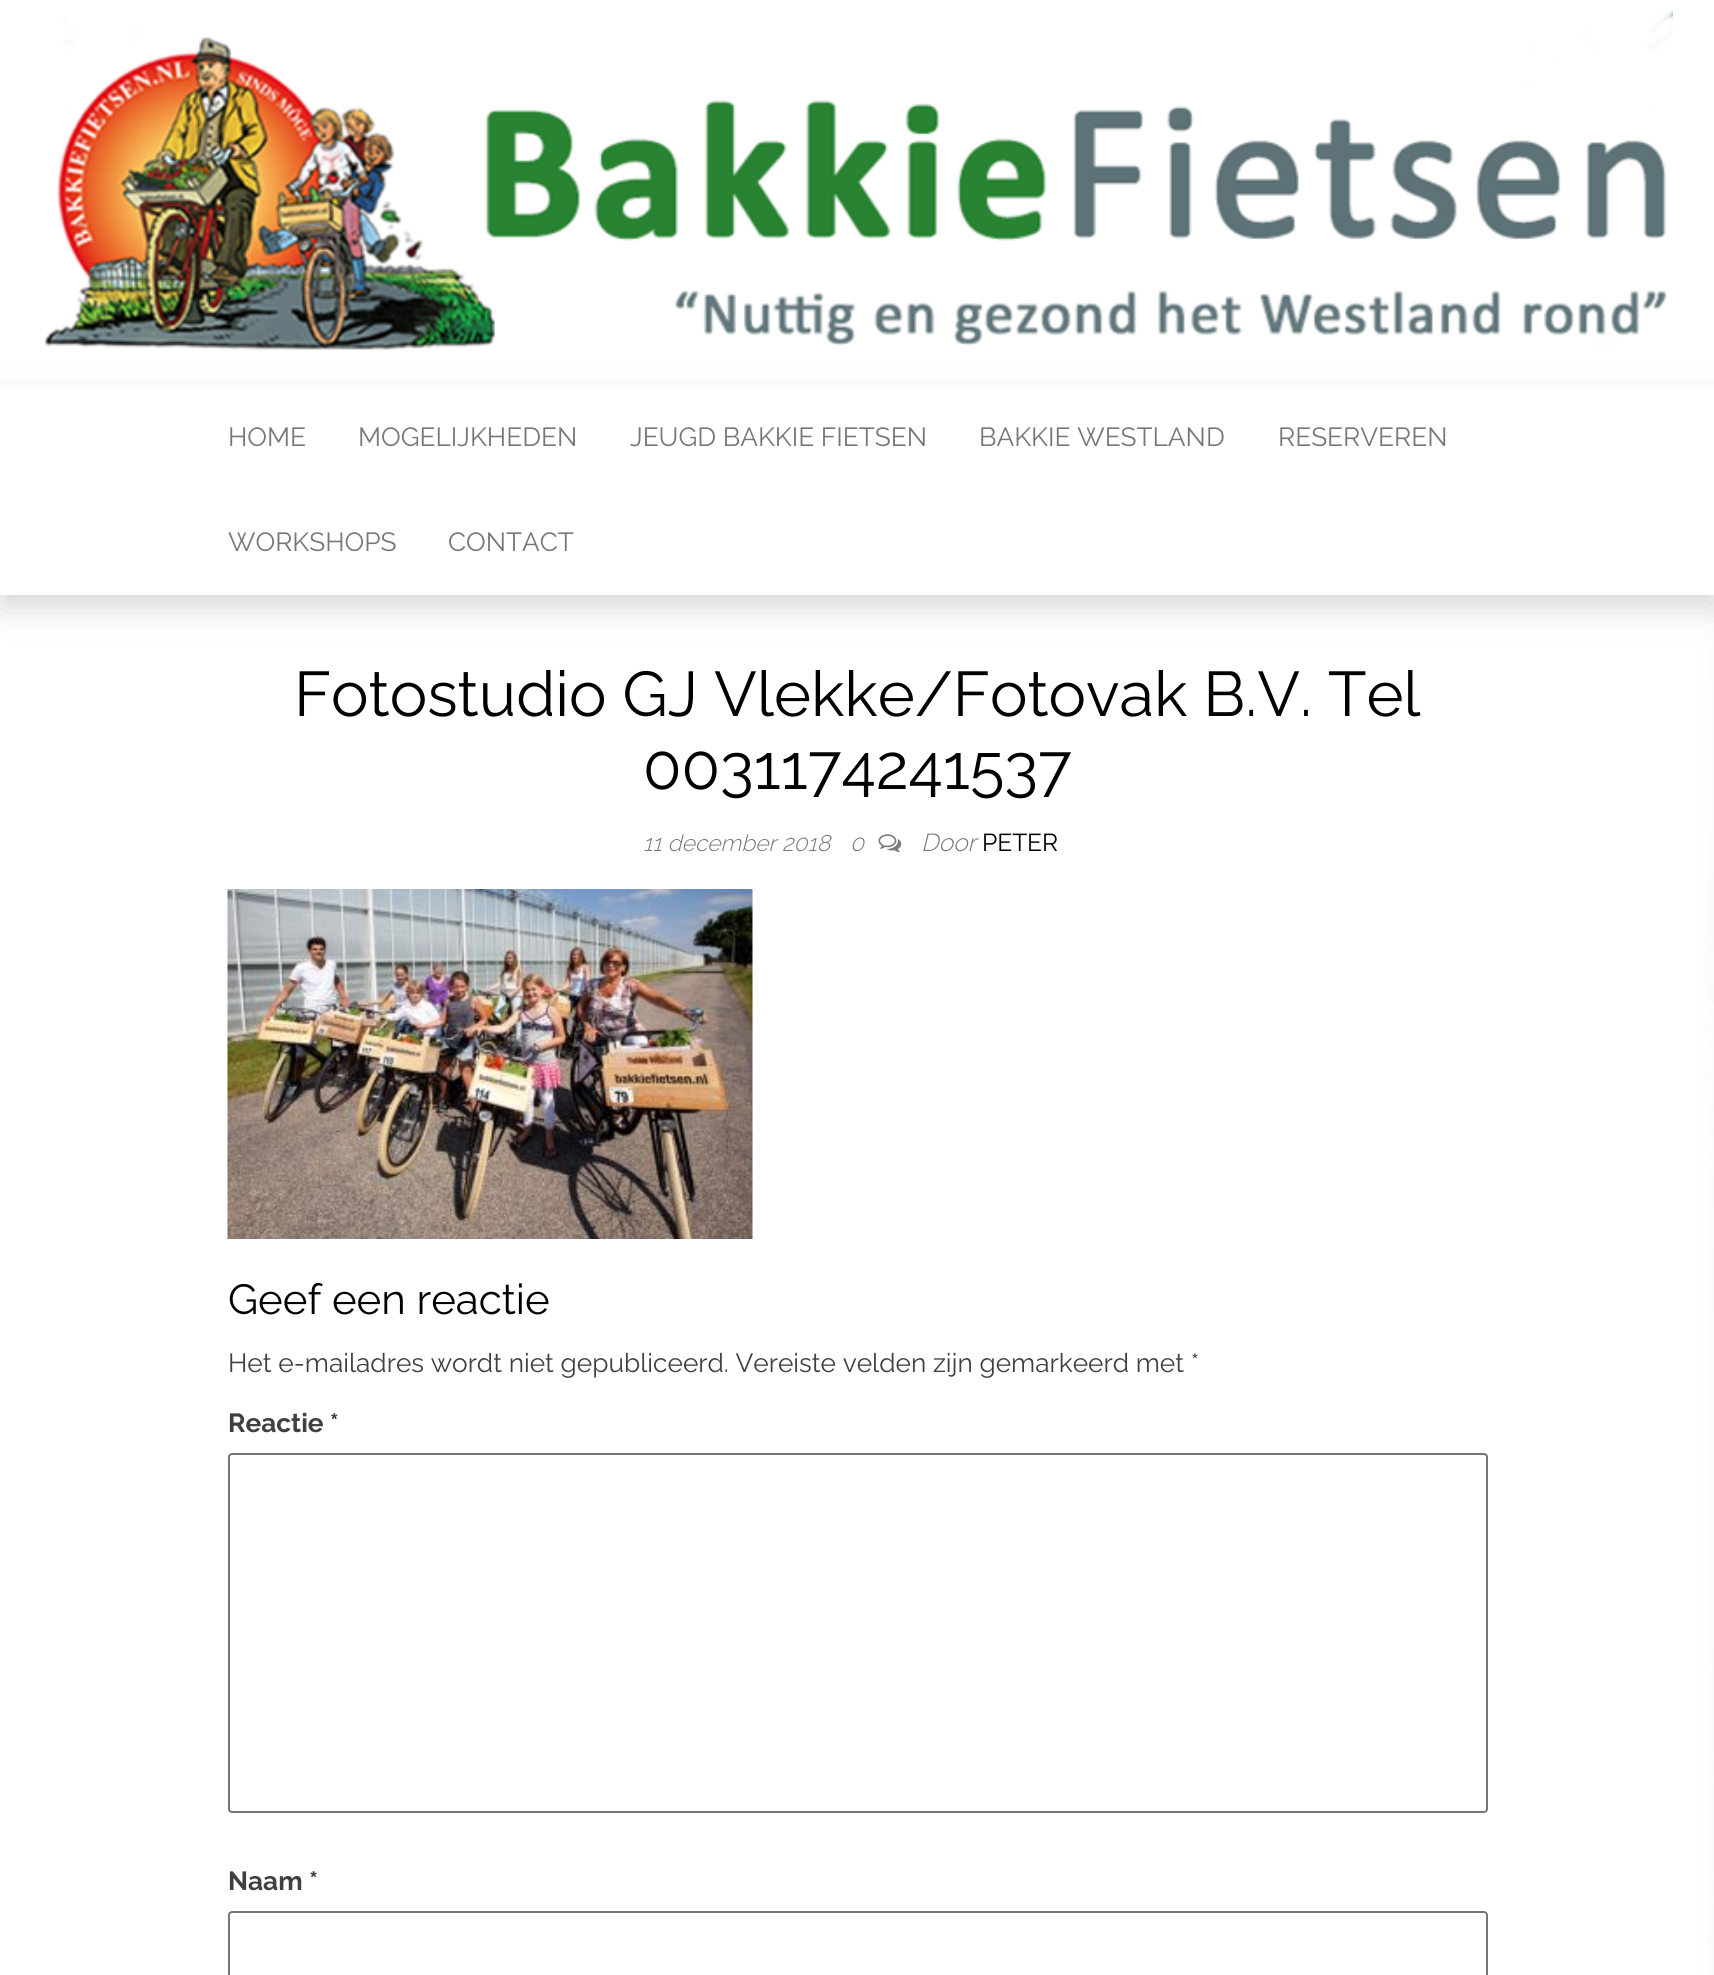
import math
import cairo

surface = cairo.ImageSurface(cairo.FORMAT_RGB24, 1714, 1975)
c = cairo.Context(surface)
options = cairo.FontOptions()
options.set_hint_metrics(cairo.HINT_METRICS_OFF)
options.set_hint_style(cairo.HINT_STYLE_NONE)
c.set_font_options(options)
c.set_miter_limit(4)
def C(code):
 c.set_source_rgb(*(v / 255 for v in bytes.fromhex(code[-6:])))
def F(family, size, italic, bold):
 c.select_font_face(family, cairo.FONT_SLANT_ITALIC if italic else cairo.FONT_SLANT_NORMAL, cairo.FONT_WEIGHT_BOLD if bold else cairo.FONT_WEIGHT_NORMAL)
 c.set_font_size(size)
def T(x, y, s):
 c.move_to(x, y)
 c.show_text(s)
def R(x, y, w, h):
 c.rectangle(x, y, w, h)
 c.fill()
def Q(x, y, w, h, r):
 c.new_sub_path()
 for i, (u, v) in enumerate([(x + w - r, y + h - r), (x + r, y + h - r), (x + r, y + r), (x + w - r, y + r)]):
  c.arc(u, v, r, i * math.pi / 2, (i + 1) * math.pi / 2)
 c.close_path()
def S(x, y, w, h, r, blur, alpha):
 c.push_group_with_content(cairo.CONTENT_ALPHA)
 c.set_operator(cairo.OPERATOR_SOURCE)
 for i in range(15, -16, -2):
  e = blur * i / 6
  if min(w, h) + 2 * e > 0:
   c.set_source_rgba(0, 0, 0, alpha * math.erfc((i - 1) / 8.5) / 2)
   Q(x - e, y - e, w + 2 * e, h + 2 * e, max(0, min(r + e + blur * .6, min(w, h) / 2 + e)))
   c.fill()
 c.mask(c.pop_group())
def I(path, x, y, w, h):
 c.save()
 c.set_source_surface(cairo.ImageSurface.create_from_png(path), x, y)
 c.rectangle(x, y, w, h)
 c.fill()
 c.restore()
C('ffffff')
c.paint()
I('1.png',0,595,1714,1380)
I('2.png',44,10,1629,340)
C('000000')
S(2,399,1711,207,0,16.5,.17)
C('ffffff')
R(0,385,1714,210)
F('Raleway',26.25,0,0)
C('777777')
T(228,446,'HOME')
T(358,446,'MOGELIJKHEDEN')
T(630,446,'JEUGD BAKKIE FIETSEN')
T(979,446,'BAKKIE WESTLAND')
T(1278,446,'RESERVEREN')
T(228,551,'WORKSHOPS')
T(448,551,'CONTACT')
F('Raleway',63,0,0)
C('000000')
T(294,716,'Fotostudio GJ Vlekke/Fotovak B.V. Tel')
T(643,789,'0031174241537')
F('Raleway Light',22.75,1,0)
C('777777')
T(643,851,'11 december 2018')
T(850,851,'0')
I('3.png',878,834,24,19)
F('Raleway Light',24.5,1,0)
T(921,851,'Door')
F('Raleway',24.5,0,0)
C('000000')
T(982,851,'PETER')
I('4.png',227,889,526,350)
F('Raleway',42,0,0)
T(228,1314,'Geef een reactie')
F('Raleway',26.25,0,0)
C('404040')
T(228,1372,'Het e-mailadres wordt niet gepubliceerd. Vereiste velden zijn gemarkeerd met *')
F('Raleway',26.25,0,1)
T(228,1432,'Reactie *')
Q(229,1454,1258,358,3)
C('767676')
c.stroke()
C('404040')
T(228,1890,'Naam *')
Q(229,1912,1258,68,3)
C('767676')
c.stroke()
surface.write_to_png('o.png')
